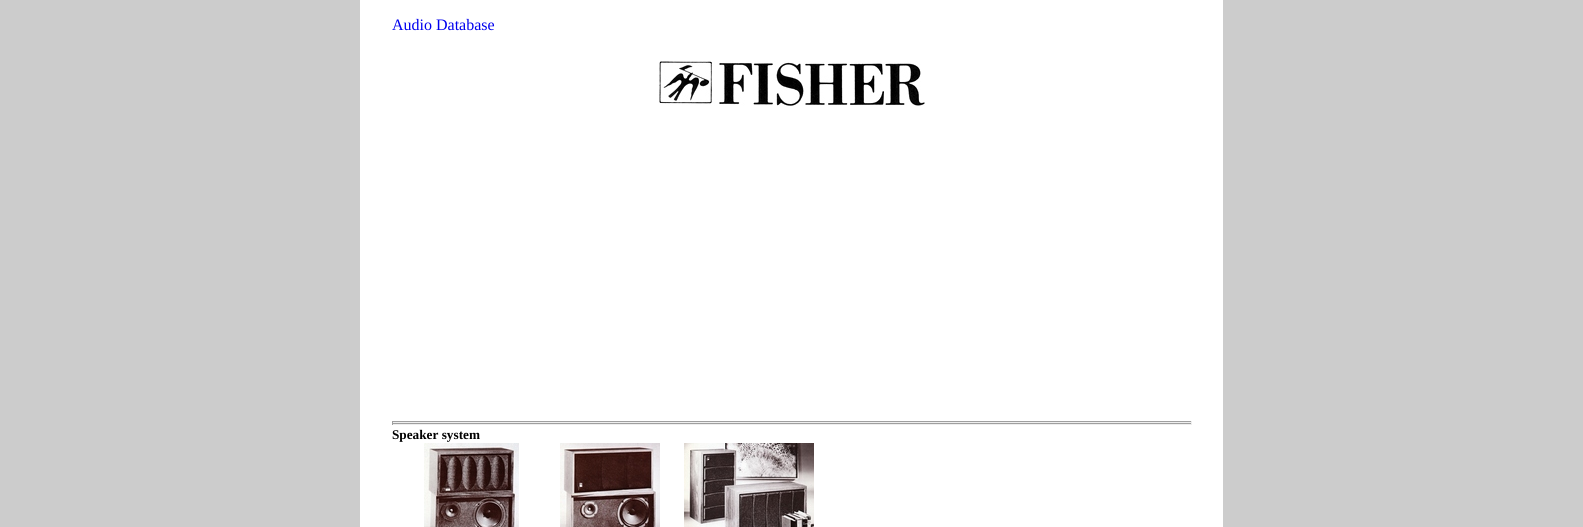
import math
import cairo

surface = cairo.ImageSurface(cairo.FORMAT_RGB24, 1583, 527)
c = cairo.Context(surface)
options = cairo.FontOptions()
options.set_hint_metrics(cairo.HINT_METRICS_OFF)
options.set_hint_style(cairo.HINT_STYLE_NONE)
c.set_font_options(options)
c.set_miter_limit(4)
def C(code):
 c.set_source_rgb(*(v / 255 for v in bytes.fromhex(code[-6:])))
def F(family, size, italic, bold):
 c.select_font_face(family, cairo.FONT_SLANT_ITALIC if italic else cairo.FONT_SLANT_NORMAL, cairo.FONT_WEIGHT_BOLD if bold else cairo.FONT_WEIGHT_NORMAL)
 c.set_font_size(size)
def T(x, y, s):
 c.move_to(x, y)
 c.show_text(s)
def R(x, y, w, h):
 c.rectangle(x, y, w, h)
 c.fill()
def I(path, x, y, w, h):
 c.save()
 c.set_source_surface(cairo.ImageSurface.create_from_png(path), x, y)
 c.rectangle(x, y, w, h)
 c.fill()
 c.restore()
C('cccccc')
c.paint()
C('ffffff')
R(360,0,863,527)
F('Liberation Serif',16,0,0)
C('0000ee')
T(392,30,'Audio Database')
I('1.png',659,61,266,45)
C('9f9f9f')
R(392,421,800,1)
C('eeeeee')
R(1191,421,1,2)
R(392,422,800,1)
C('9f9f9f')
R(392,421,1,2)
R(392,423,800,1)
C('eeeeee')
R(1191,423,1,2)
R(392,424,800,1)
C('9f9f9f')
R(392,423,1,2)
F('Liberation Serif',13.25,0,1)
C('000000')
T(392,439,'Speaker system')
I('2.png',424,443,95,84)
I('3.png',560,443,100,84)
I('4.png',684,443,130,84)
surface.write_to_png('o.png')
